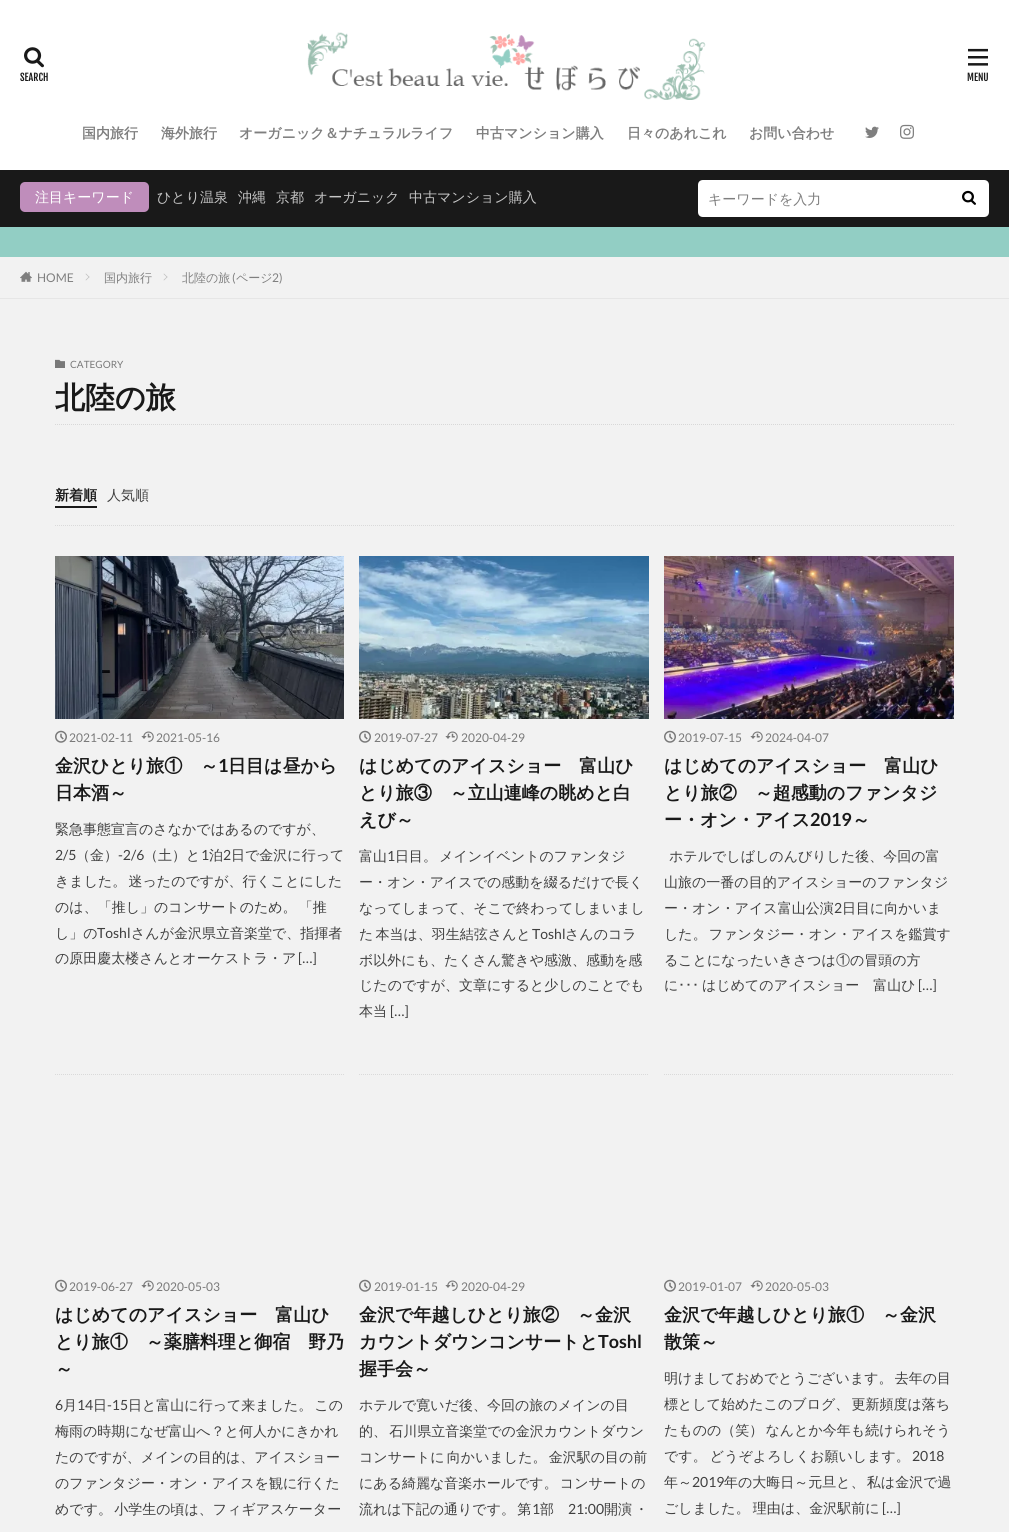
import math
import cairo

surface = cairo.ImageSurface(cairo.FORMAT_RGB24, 1009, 1532)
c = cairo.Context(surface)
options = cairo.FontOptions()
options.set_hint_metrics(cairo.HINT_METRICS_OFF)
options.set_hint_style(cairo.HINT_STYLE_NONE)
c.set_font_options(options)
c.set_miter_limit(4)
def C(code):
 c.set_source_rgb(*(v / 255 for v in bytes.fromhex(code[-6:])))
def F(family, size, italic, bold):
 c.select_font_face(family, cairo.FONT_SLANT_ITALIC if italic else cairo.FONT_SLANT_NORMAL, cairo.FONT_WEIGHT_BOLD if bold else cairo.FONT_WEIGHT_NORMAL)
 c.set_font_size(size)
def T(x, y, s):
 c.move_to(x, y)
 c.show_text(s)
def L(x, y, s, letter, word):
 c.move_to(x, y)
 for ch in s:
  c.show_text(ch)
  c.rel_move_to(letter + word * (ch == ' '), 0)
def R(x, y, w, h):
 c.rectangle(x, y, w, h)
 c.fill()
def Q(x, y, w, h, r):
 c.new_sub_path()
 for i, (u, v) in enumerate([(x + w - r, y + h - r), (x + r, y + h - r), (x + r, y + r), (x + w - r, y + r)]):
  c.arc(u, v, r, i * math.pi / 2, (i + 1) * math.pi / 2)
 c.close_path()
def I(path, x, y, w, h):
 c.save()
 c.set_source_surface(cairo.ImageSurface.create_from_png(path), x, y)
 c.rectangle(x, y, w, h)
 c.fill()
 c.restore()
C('f2f2f2')
c.paint()
C('ffffff')
R(0,0,1009,170)
I('1.png',24,47,20,21)
F('Fjalla One',10,0,0)
C('191919')
T(20,81,'SEARCH')
I('2.png',307,32,399,68)
I('3.png',968,48,20,18)
T(967,81,'MENU')
F('WenQuanYi Zen Hei',14,0,1)
C('7f7f7f')
T(82,138,'国内旅行')
T(161,138,'海外旅行')
T(239,138,'オーガニック＆ナチュラルライフ')
T(476,138,'中古マンション購入')
T(627,138,'日々のあれこれ')
T(749,138,'お問い合わせ')
I('4.png',865,126,14,12)
I('5.png',900,124,14,15)
C('191919')
R(0,170,1009,57)
C('bf8dbb')
Q(20,182,129,30,5)
c.fill()
F('WenQuanYi Zen Hei Medium',14,0,0)
C('ffffff')
T(35,202,'注目キーワード')
C('c6c6c6')
T(157,202,'ひとり温泉')
T(238,202,'沖縄')
T(276,202,'京都')
T(314,202,'オーガニック')
T(409,202,'中古マンション購入')
C('ffffff')
c.new_path()
c.move_to(703,180)
c.line_to(949,180)
c.line_to(949,217)
c.line_to(703,217)
c.curve_to(700,217,698,215,698,212)
c.line_to(698,185)
c.curve_to(698,182,700,180,703,180)
c.close_path()
c.fill()
C('7f7f7f')
T(708,204,'キーワードを入力')
C('ffffff')
c.new_path()
c.move_to(949,180)
c.line_to(984,180)
c.curve_to(987,180,989,182,989,185)
c.line_to(989,212)
c.curve_to(989,215,987,217,984,217)
c.line_to(949,217)
c.close_path()
c.fill()
I('6.png',962,190,14,15)
C('92cec4')
R(0,227,1009,30)
C('e6e6e6')
R(0,298,1009,1)
I('7.png',20,271,12,11)
F('Lato',12,0,0)
C('7f7f7f')
T(37,282,'HOME')
C('bfbfbf')
c.new_path()
c.move_to(86,273.5)
c.line_to(89.5,277)
c.line_to(89,277.5)
c.line_to(85.5,274)
c.close_path()
c.fill()
c.new_path()
c.move_to(89,276.5)
c.line_to(89.5,277)
c.line_to(86,280.5)
c.line_to(85.5,280)
c.close_path()
c.fill()
F('WenQuanYi Zen Hei Medium',12,0,0)
C('7f7f7f')
T(104,282,'国内旅行')
C('bfbfbf')
c.new_path()
c.move_to(164,273.5)
c.line_to(167.5,277)
c.line_to(167,277.5)
c.line_to(163.5,274)
c.close_path()
c.fill()
c.new_path()
c.move_to(167,276.5)
c.line_to(167.5,277)
c.line_to(164,280.5)
c.line_to(163.5,280)
c.close_path()
c.fill()
C('7f7f7f')
T(182,282,'北陸の旅')
F('Lato',12,0,0)
T(232,282,'(')
F('WenQuanYi Zen Hei Medium',12,0,0)
T(236,282,'ページ')
F('Lato',12,0,0)
T(272,282,'2)')
I('8.png',55,359,10,9)
F('Lato',10,0,0)
C('797979')
T(70,368,'CATEGORY')
c.new_path()
c.move_to(55,424.5)
c.line_to(955,424.5)
C('d8d8d8')
c.set_line_width(1)
c.set_dash([1,1])
c.stroke()
F('WenQuanYi Zen Hei',30,0,1)
C('191919')
T(55,408,'北陸の旅')
c.new_path()
c.move_to(55,525.5)
c.line_to(955,525.5)
C('dadada')
c.stroke()
F('WenQuanYi Zen Hei',14,0,1)
C('191919')
T(55,500,'新着順')
R(55,506,42,2)
F('WenQuanYi Zen Hei Medium',14,0,0)
C('3f3f3f')
T(107,500,'人気順')
c.new_path()
c.move_to(55,1074.5)
c.line_to(344,1074.5)
C('dadada')
c.stroke()
I('9.png',55,556,289,163)
I('10.png',55,730,12,13)
F('Lato',12,0,0)
C('797979')
T(69,742,'2021-02-11')
I('11.png',141,731,13,11)
T(156,742,'2021-05-16')
F('WenQuanYi Zen Hei',18,0,1)
C('191919')
T(55,772,'金沢ひとり旅①　～')
F('Lato',18,0,1)
T(218,772,'1')
F('WenQuanYi Zen Hei',18,0,1)
T(228,772,'日目は昼から')
T(55,799,'日本酒～')
F('WenQuanYi Zen Hei Medium',14,0,0)
C('3f3f3f')
T(55,834,'緊急事態宣言のさなかではあるのですが、')
F('Lato',14,0,0)
T(55,860,'2/5')
F('WenQuanYi Zen Hei Medium',14,0,0)
T(76,860,'（金）')
F('Lato',14,0,0)
T(118,860,'-2/6')
F('WenQuanYi Zen Hei Medium',14,0,0)
T(144,860,'（土）と')
F('Lato',14,0,0)
T(201,860,'1')
F('WenQuanYi Zen Hei Medium',14,0,0)
T(209,860,'泊')
F('Lato',14,0,0)
T(223,860,'2')
F('WenQuanYi Zen Hei Medium',14,0,0)
T(231,860,'日で金沢に行って')
L(55,886,'きました。 迷ったのですが、行くことにした',0,-2)
L(55,912,'のは、「推し」のコンサートのため。 「推',0,-2)
T(55,938,'し」の')
F('Lato',14,0,0)
T(97,938,'Toshl')
F('WenQuanYi Zen Hei Medium',14,0,0)
T(131,938,'さんが金沢県立音楽堂で、指揮者')
T(55,963,'の原田慶太楼さんとオーケストラ・ア')
F('Lato',14,0,0)
T(298,963,'[…]')
c.new_path()
c.move_to(359,1074.5)
c.line_to(649,1074.5)
C('dadada')
c.stroke()
I('12.png',359,556,290,163)
I('10.png',359,730,12,13)
F('Lato',12,0,0)
C('797979')
T(374,742,'2019-07-27')
I('11.png',445,731,13,11)
T(461,742,'2020-04-29')
F('WenQuanYi Zen Hei',18,0,1)
C('191919')
T(359,772,'はじめてのアイスショー　富山ひ')
T(359,799,'とり旅③　～立山連峰の眺めと白')
T(359,826,'えび～')
F('WenQuanYi Zen Hei Medium',14,0,0)
C('3f3f3f')
T(359,861,'富山')
F('Lato',14,0,0)
T(387,861,'1')
F('WenQuanYi Zen Hei Medium',14,0,0)
L(395,861,'日目。 メインイベントのファンタジ',0,-2)
T(359,887,'ー・オン・アイスでの感動を綴るだけで長く')
T(359,913,'なってしまって、そこで終わってしまいまし')
L(359,939,'た 本当は、羽生結弦さんと',0,-2)
F('Lato',14,0,0)
T(532,939,'Toshl')
F('WenQuanYi Zen Hei Medium',14,0,0)
T(565,939,'さんのコラ')
T(359,965,'ボ以外にも、たくさん驚きや感激、感動を感')
T(359,990,'じたのですが、文章にすると少しのことでも')
T(359,1016,'本当')
F('Lato',14,0,0)
T(390,1016,'[…]')
c.new_path()
c.move_to(664,1074.5)
c.line_to(954,1074.5)
C('dadada')
c.stroke()
I('13.png',664,556,290,163)
I('10.png',664,730,12,13)
F('Lato',12,0,0)
C('797979')
T(678,742,'2019-07-15')
I('11.png',750,731,13,11)
T(765,742,'2024-04-07')
F('WenQuanYi Zen Hei',18,0,1)
C('191919')
T(664,772,'はじめてのアイスショー　富山ひ')
T(664,799,'とり旅②　～超感動のファンタジ')
T(664,826,'ー・オン・アイス')
F('Lato',18,0,1)
T(810,826,'2019')
F('WenQuanYi Zen Hei',18,0,1)
T(852,826,'～')
F('WenQuanYi Zen Hei Medium',14,0,0)
C('3f3f3f')
T(669,861,'ホテルでしばしのんびりした後、今回の富')
T(664,887,'山旅の一番の目的アイスショーのファンタジ')
T(664,913,'ー・オン・アイス富山公演')
F('Lato',14,0,0)
T(834,913,'2')
F('WenQuanYi Zen Hei Medium',14,0,0)
T(842,913,'日目に向かいま')
L(664,939,'した。 ファンタジー・オン・アイスを鑑賞す',0,-2)
T(664,965,'ることになったいきさつは①の冒頭の方')
T(664,990,'に')
F('IPAPGothic',14,0,0)
T(678,990,'･･･')
F('WenQuanYi Zen Hei Medium',14,0,0)
T(702,990,'はじめてのアイスショー　富山ひ')
F('Lato',14,0,0)
T(918,990,'[…]')
I('10.png',55,1279,12,13)
F('Lato',12,0,0)
C('797979')
T(69,1291,'2019-06-27')
I('11.png',141,1280,13,11)
T(156,1291,'2020-05-03')
F('WenQuanYi Zen Hei',18,0,1)
C('191919')
T(55,1321,'はじめてのアイスショー　富山ひ')
T(55,1348,'とり旅①　～薬膳料理と御宿　野乃')
T(55,1375,'～')
F('Lato',14,0,0)
C('3f3f3f')
T(55,1410,'6')
F('WenQuanYi Zen Hei Medium',14,0,0)
T(63,1410,'月')
F('Lato',14,0,0)
T(77,1410,'14')
F('WenQuanYi Zen Hei Medium',14,0,0)
T(93,1410,'日')
F('Lato',14,0,0)
T(107,1410,'-15')
F('WenQuanYi Zen Hei Medium',14,0,0)
L(128,1410,'日と富山に行って来ました。 この',0,-2)
T(55,1436,'梅雨の時期になぜ富山へ？と何人かにきかれ')
T(55,1462,'たのですが、メインの目的は、アイスショー')
T(55,1488,'のファンタジー・オン・アイスを観に行くた')
L(55,1514,'めです。 小学生の頃は、フィギアスケーター',0,-2)
I('10.png',359,1279,12,13)
F('Lato',12,0,0)
C('797979')
T(374,1291,'2019-01-15')
I('11.png',445,1280,13,11)
T(461,1291,'2020-04-29')
F('WenQuanYi Zen Hei',18,0,1)
C('191919')
T(359,1321,'金沢で年越しひとり旅②　～金沢')
T(359,1348,'カウントダウンコンサートと')
F('Lato',18,0,1)
T(598,1348,'Toshl')
F('WenQuanYi Zen Hei',18,0,1)
T(359,1375,'握手会～')
F('WenQuanYi Zen Hei Medium',14,0,0)
C('3f3f3f')
T(359,1410,'ホテルで寛いだ後、今回の旅のメインの目')
L(359,1436,'的、 石川県立音楽堂での金沢カウントダウン',0,-2)
L(359,1462,'コンサートに 向かいました。 金沢駅の目の前',0,-2)
L(359,1488,'にある綺麗な音楽ホールです。 コンサートの',0,-2)
L(359,1514,'流れは下記の通りです。 第',0,-2)
F('Lato',14,0,0)
T(532,1514,'1')
F('WenQuanYi Zen Hei Medium',14,0,0)
T(540,1514,'部')
F('Lato',14,0,0)
T(568,1514,'21:00')
F('WenQuanYi Zen Hei Medium',14,0,0)
L(604,1514,'開演 ・',0,-2)
I('10.png',664,1279,12,13)
F('Lato',12,0,0)
C('797979')
T(678,1291,'2019-01-07')
I('11.png',750,1280,13,11)
T(765,1291,'2020-05-03')
F('WenQuanYi Zen Hei',18,0,1)
C('191919')
T(664,1321,'金沢で年越しひとり旅①　～金沢')
T(664,1348,'散策～')
F('WenQuanYi Zen Hei Medium',14,0,0)
C('3f3f3f')
L(664,1383,'明けましておめでとうございます。 去年の目',0,-2)
L(664,1409,'標として始めたこのブログ、 更新頻度は落ち',0,-2)
L(664,1435,'たものの（笑） なんとか今年も続けられそう',0,-2)
L(664,1461,'です。 どうぞよろしくお願いします。',0,-1)
F('Lato',14,0,0)
T(912,1461,'2018')
F('WenQuanYi Zen Hei Medium',14,0,0)
T(664,1487,'年～')
F('Lato',14,0,0)
T(692,1487,'2019')
F('WenQuanYi Zen Hei Medium',14,0,0)
L(724,1487,'年の大晦日～元旦と、 私は金沢で過',0,-2)
L(664,1513,'ごしました。 理由は、金沢駅前に',0,-1)
F('Lato',14,0,0)
T(882,1513,'[…]')
surface.write_to_png('o.png')
